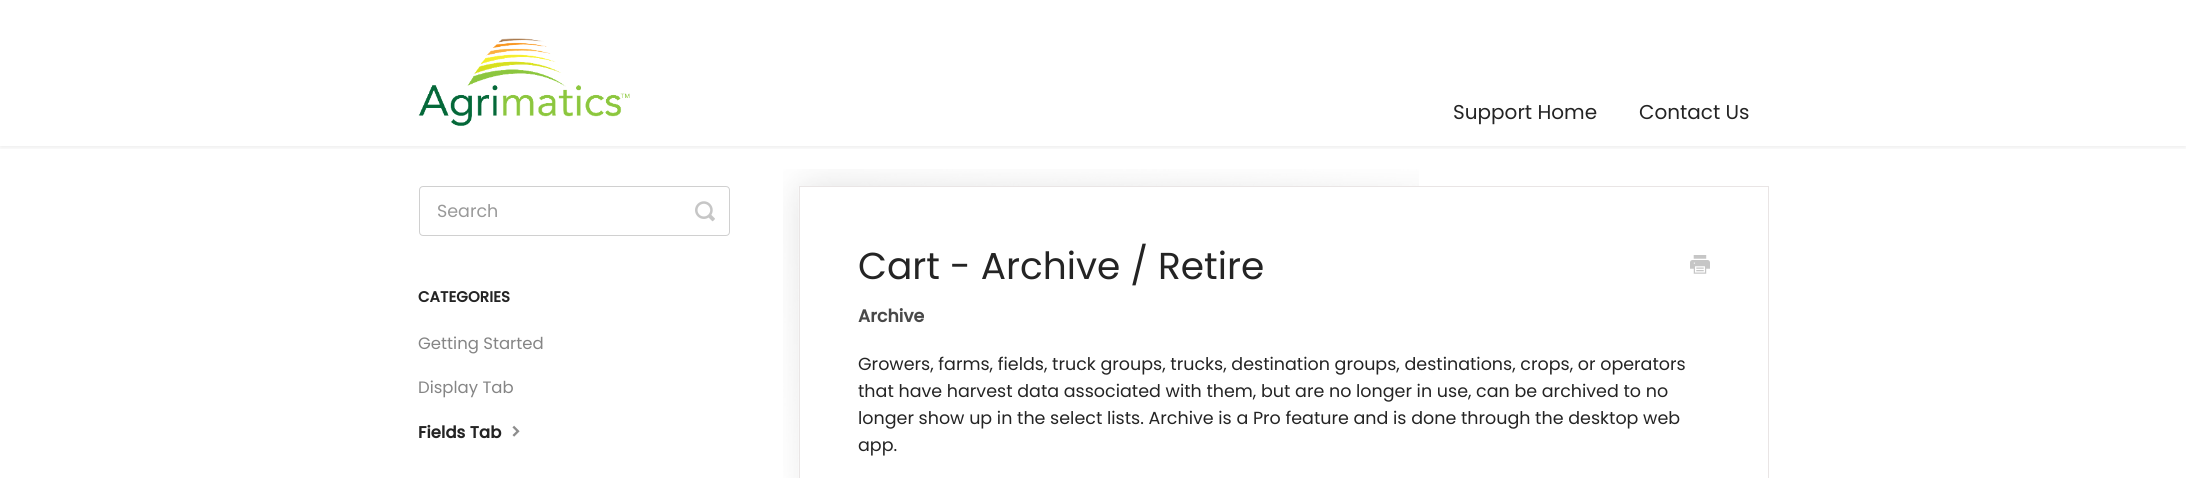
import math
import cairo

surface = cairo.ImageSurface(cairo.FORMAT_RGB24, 2186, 478)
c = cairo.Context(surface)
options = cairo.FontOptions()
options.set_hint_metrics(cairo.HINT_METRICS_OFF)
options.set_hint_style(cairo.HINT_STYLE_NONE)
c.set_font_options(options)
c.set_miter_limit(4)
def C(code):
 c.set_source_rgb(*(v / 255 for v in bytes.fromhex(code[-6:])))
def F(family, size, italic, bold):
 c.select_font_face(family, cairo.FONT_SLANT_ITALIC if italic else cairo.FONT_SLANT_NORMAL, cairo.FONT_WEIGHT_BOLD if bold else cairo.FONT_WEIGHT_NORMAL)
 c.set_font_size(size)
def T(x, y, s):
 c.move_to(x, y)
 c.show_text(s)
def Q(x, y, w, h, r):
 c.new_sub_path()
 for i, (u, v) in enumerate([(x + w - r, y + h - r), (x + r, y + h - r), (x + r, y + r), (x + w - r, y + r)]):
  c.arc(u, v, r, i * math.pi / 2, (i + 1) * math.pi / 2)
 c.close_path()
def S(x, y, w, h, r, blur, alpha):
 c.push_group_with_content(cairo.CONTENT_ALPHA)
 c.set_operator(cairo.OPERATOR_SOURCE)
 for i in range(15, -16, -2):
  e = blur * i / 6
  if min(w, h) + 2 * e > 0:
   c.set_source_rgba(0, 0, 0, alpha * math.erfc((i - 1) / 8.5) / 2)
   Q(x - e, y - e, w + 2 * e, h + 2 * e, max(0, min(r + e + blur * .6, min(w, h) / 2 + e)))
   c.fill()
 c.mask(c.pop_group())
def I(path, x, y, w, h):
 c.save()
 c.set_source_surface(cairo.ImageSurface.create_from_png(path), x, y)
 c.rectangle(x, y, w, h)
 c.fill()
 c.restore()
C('ffffff')
c.paint()
c.save()
c.rectangle(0,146,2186,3)
c.clip()
C('000000')
S(0,1,2186,147,0,2.5,.07)
c.restore()
I('1.png',418,38,212,88)
F('Poppins',20,0,0)
C('242424')
T(1453,119,'Support Home')
T(1639,119,'Contact Us')
Q(419.5,186.5,310,49,3.5)
C('d0d0d0')
c.set_line_width(1)
c.stroke()
F('Poppins',17.5,0,0)
C('999999')
T(437,217,'Search')
I('2.png',695,201,20,21)
F('Poppins',15,0,1)
C('242424')
T(418,302,'CATEGORIES')
F('Poppins',16.5,0,0)
C('858585')
T(418,349,'Getting Started')
T(418,393,'Display Tab')
F('Poppins',16.5,0,1)
C('242424')
T(418,438,'Fields Tab')
I('3.png',512,425,8,12)
I('4.png',783,169,636,309)
c.rectangle(799.5,186.5,969,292)
C('e9e5e5')
c.stroke()
F('Poppins',37.5,0,0)
C('242424')
T(858,279,'Cart - Archive / Retire')
I('5.png',1690,255,20,19)
F('Poppins',17.5,0,1)
C('494949')
T(858,322,'Archive')
F('Poppins',17.5,0,0)
C('242424')
T(858,370,'Growers, farms, fields, truck groups, trucks, destination groups, destinations, crops, or operators')
T(858,397,'that have harvest data associated with them, but are no longer in use, can be archived to no')
T(858,424,'longer show up in the select lists. Archive is a Pro feature and is done through the desktop web')
T(858,451,'app.')
surface.write_to_png('o.png')
